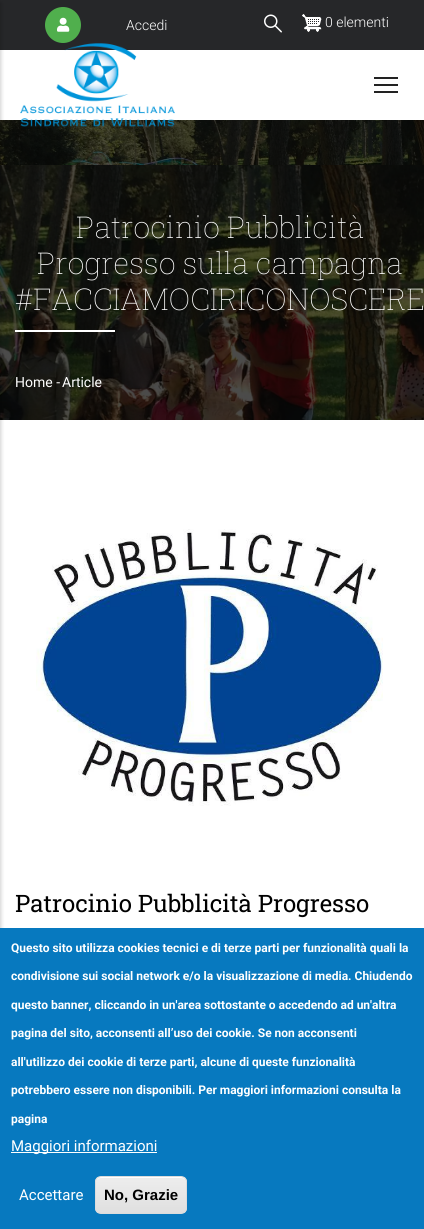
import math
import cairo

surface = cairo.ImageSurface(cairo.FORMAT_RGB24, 424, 1229)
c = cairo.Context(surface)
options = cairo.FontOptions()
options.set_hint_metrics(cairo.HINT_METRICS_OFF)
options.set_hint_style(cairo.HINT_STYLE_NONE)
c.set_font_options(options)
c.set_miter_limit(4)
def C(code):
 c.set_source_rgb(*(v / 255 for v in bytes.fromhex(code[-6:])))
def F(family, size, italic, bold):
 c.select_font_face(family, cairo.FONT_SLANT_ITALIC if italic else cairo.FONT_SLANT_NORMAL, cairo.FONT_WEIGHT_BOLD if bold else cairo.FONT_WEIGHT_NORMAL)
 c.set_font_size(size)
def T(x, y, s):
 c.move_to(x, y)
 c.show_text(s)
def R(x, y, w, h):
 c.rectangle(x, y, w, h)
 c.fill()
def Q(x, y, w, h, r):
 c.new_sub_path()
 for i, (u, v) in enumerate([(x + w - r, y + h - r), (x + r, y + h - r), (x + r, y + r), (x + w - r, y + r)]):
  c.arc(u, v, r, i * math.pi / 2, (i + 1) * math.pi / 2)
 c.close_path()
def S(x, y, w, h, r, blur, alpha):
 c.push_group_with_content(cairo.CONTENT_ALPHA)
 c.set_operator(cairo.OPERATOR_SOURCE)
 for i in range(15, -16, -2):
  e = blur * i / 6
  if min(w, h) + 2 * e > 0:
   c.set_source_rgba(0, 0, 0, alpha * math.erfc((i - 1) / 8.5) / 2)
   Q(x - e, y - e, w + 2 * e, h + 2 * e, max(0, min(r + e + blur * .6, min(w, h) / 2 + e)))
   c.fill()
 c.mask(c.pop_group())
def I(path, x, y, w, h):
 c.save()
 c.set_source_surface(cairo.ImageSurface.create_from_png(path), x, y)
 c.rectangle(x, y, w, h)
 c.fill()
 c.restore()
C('ffffff')
c.paint()
C('262729')
R(0,0,424,50)
I('5.png',0,120,424,45)
I('6.png',0,165,424,255)
C('000000')
S(-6,3,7,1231,0,2,.2)
C('222222')
R(374,77,24,2)
R(374,84,24,2)
R(374,91,24,2)
I('1.png',20,43,155,84)
C('50af4d')
c.arc(63,25,18,0,2 * math.pi)
c.fill()
I('2.png',57,17,13,15)
F('Roboto Light',14,0,0)
C('ffffff')
T(126,30,'Accedi')
I('3.png',264,14,18,19)
I('4.png',302,14,20,18)
T(325,27,'0 elementi')
F('Roboto Slab Thin',30,0,0)
T(76,238,'Patrocinio Pubblicità')
T(37,274,'Progresso sulla campagna')
T(15,310,'#FACCIAMOCIRICONOSCERE')
R(15,330,100,2)
F('Roboto',14,0,0)
T(15,387,'Home -')
T(62,387,'Article')
I('7.png',36,529,347,277)
F('Roboto Slab',24,0,0)
C('000000')
T(15,912,'Patrocinio Pubblicità Progresso')
C('0779bf')
R(0,928,424,301)
F('Roboto',12,0,1)
C('ffffff')
T(11,952,'Questo sito utilizza cookies tecnici e di terze parti per funzionalità quali la')
T(11,980,'condivisione sui social network e/o la visualizzazione di media. Chiudendo')
T(11,1009,'questo banner, cliccando in un\'area sottostante o accedendo ad un\'altra')
T(11,1037,'pagina del sito, acconsenti all’uso dei cookie. Se non acconsenti')
T(11,1066,'all\'utilizzo dei cookie di terze parti, alcune di queste funzionalità')
T(11,1094,'potrebbero essere non disponibili. Per maggiori informazioni consulta la')
T(11,1123,'pagina')
R(11,1152,146,1)
F('Roboto',15,0,0)
T(11,1151,'Maggiori informazioni')
T(19,1200,'Accettare')
c.save()
Q(95,1176,92,38,6)
c.clip()
gradient = cairo.LinearGradient(141,1177,141,1213)
gradient.add_color_stop_rgba(.05,0.929,0.929,0.929,1)
gradient.add_color_stop_rgba(1,0.875,0.875,0.875,1)
c.set_source(gradient)
R(95,1177,92,36)
c.restore()
c.new_path()
c.move_to(101,1178)
c.line_to(181,1178)
c.curve_to(184,1178,186,1180,186,1183)
c.curve_to(186,1174,173,1177,168,1177)
c.line_to(114,1177)
c.curve_to(109,1177,96,1174,96,1183)
c.curve_to(96,1180,98,1178,101,1178)
c.close_path()
c.fill()
Q(95.5,1176.5,91,37,5.5)
C('dcdcdc')
c.set_line_width(1)
c.stroke()
F('Liberation Sans',15,0,1)
C('000000')
T(104,1200,'No, Grazie')
surface.write_to_png('o.png')
